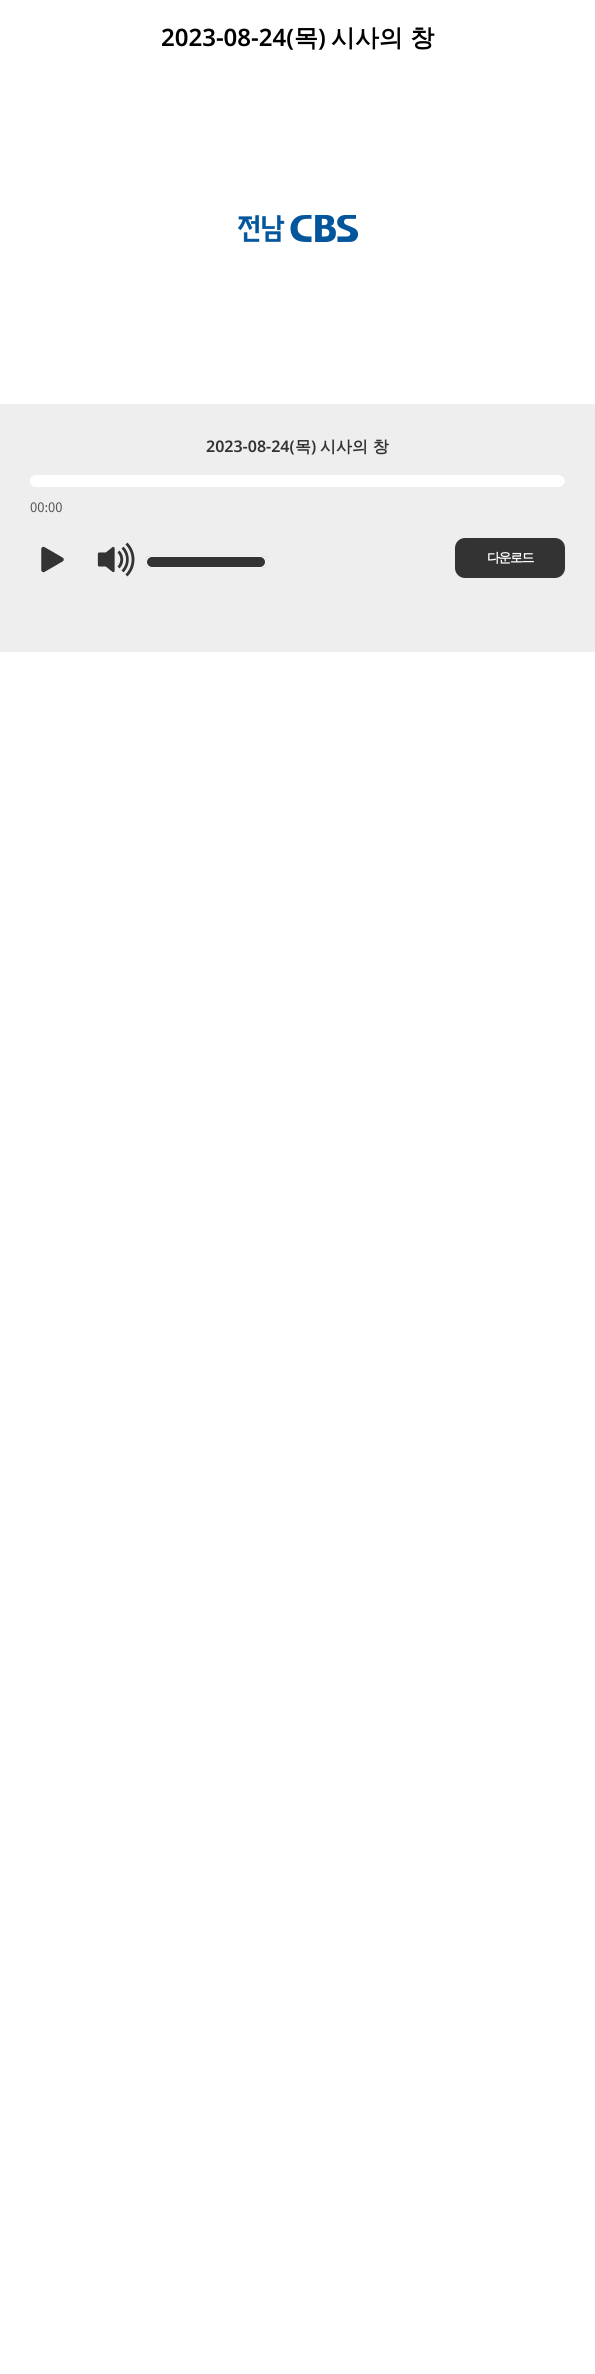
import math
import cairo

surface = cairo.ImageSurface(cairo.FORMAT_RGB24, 595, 2374)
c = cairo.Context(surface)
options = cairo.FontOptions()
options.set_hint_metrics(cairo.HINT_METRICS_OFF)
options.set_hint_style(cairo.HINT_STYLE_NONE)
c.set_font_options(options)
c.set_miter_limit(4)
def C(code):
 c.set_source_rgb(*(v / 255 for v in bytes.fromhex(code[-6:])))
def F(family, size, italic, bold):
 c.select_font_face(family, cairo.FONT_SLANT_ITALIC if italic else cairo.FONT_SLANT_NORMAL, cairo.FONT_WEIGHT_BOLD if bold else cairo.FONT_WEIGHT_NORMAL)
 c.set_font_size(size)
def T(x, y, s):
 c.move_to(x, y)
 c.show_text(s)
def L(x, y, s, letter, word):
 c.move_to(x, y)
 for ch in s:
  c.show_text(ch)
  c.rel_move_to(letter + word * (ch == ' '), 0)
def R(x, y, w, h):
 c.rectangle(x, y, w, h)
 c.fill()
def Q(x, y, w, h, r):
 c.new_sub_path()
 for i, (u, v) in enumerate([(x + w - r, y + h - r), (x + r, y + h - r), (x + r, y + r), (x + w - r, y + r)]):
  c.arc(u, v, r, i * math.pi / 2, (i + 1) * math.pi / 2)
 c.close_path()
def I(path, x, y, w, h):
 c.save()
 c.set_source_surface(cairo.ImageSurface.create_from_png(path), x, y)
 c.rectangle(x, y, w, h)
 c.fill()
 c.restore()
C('ffffff')
c.paint()
F('Noto Sans SemiBold',24,0,0)
C('000000')
T(161,46,'2023-08-24(')
F('WenQuanYi Zen Hei',24,0,1)
T(294,46,'목')
F('Noto Sans SemiBold',24,0,0)
T(318,46,')')
F('WenQuanYi Zen Hei',24,0,1)
T(331,46,'시사의 창')
I('1.png',238,215,120,27)
C('eeeeee')
R(0,404,595,248)
F('Noto Sans SemiBold',16,0,0)
C('333333')
T(206,452,'2023-08-24(')
F('WenQuanYi Zen Hei',16,0,1)
T(295,452,'목')
F('Noto Sans SemiBold',16,0,0)
T(311,452,')')
F('WenQuanYi Zen Hei',16,0,1)
T(320,452,'시사의 창')
C('dddddd')
Q(30,475,535,12,5)
c.fill()
c.save()
Q(30,475,535,12,5)
c.clip()
C('ffffff')
c.new_path()
c.move_to(35,475)
c.line_to(559,475)
c.curve_to(562.5,475,565,477.5,565,481)
c.curve_to(565,484.5,562.5,487,559,487)
c.line_to(35,487)
c.curve_to(32,487,30,485,30,482)
c.line_to(30,480)
c.curve_to(30,477,32,475,35,475)
c.close_path()
c.fill()
c.restore()
F('Noto Sans KR',13,0,0)
C('555555')
T(30,512,'00:00')
I('2.png',41,546,23,27)
I('3.png',97,542,38,35)
C('ffffff')
Q(146,556,120,12,6)
c.fill()
c.rectangle(146.5,556.5,119,11)
c.set_source_rgba(0,0,0,0.05)
c.set_line_width(1)
c.stroke()
C('333333')
Q(147,557,118,10,5)
c.fill()
Q(455,538,110,40,10)
c.fill()
F('WenQuanYi Zen Hei',13,0,1)
C('ffffff')
L(487,562,'다운로드',-1.5,0)
surface.write_to_png('o.png')
